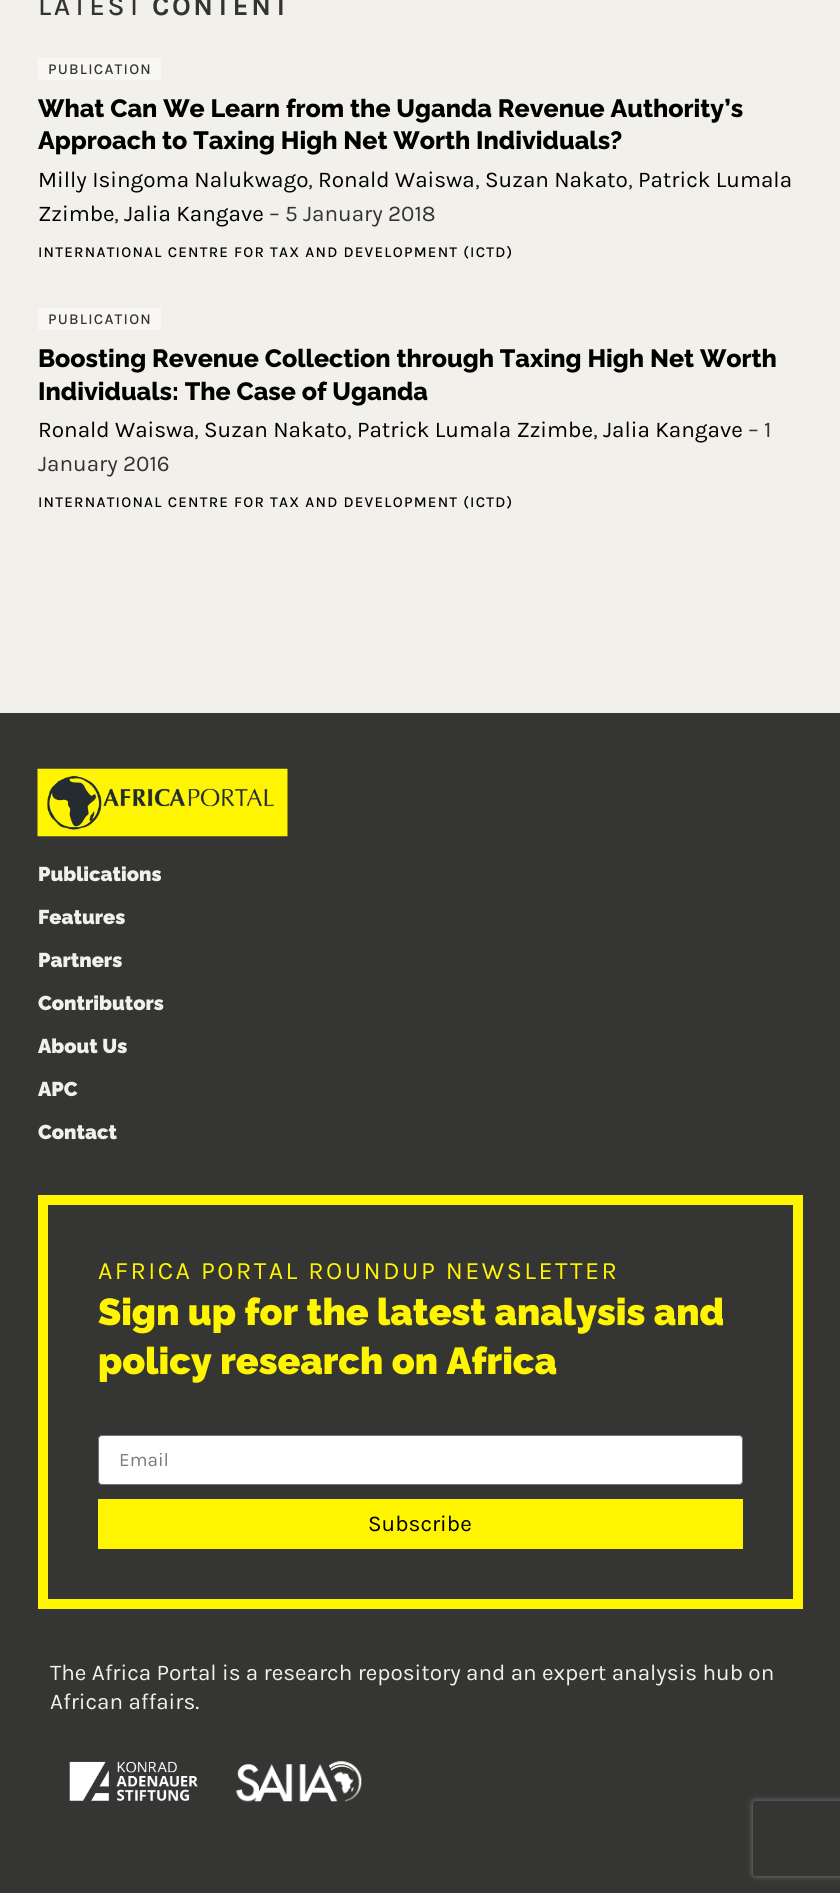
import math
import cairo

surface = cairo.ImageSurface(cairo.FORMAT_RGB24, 840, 1893)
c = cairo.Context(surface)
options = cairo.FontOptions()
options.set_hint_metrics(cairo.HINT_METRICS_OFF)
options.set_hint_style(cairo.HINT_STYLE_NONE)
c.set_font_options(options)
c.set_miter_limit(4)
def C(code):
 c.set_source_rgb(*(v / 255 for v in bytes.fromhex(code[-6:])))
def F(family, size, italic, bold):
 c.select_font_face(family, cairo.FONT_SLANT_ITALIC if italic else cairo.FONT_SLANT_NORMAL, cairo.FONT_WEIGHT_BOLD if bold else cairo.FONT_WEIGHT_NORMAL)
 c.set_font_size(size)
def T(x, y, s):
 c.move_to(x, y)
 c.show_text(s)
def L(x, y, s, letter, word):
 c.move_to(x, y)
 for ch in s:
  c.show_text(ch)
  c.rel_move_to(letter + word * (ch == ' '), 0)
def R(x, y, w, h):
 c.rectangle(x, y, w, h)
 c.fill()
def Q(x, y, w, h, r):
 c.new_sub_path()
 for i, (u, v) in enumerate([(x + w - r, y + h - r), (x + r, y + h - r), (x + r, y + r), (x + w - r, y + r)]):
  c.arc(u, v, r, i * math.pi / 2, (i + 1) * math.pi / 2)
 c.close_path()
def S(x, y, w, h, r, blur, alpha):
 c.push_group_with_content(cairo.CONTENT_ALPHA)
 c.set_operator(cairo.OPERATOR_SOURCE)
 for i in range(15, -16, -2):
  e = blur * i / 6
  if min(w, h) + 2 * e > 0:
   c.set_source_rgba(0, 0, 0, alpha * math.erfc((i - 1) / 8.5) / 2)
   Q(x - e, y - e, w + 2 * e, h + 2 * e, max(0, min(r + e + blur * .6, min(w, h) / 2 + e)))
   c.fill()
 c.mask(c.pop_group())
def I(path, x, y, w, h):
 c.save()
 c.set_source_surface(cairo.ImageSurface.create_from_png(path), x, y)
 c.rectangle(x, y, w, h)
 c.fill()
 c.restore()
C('f2f0ea')
c.paint()
F('Karla Medium',27.5,0,0)
C('333333')
L(38,15,'LATEST',2.5,0)
F('Karla',27.5,0,1)
L(152,15,'CONTENT',2.5,0)
C('f8f7f4')
R(38,58,123,22)
F('Karla Medium',15,0,0)
C('333333')
L(48,74,'PUBLICATION',1.25,0)
F('Raleway ExtraBold',25,0,0)
C('000000')
T(38,117,'What Can We Learn from the Uganda Revenue Authority’s')
T(38,149,'Approach to Taxing High Net Worth Individuals?')
F('Karla',22.5,0,0)
T(38,187,'Milly Isingoma Nalukwago')
C('333333')
T(308,187,',')
C('000000')
T(318,187,'Ronald Waiswa')
C('333333')
T(475,187,',')
C('000000')
T(485,187,'Suzan Nakato')
C('333333')
T(628,187,',')
C('000000')
T(638,187,'Patrick Lumala')
T(38,221,'Zzimbe')
C('333333')
T(114,221,',')
C('000000')
T(124,221,'Jalia Kangave')
C('333333')
T(269,221,'– 5 January 2018')
F('Karla Medium',15,0,0)
C('000000')
L(38,257,'INTERNATIONAL CENTRE FOR TAX AND DEVELOPMENT (ICTD)',1.25,0)
C('f8f7f4')
R(38,308,123,22)
C('333333')
L(48,324,'PUBLICATION',1.25,0)
F('Raleway ExtraBold',25,0,0)
C('000000')
T(38,367,'Boosting Revenue Collection through Taxing High Net Worth')
T(38,400,'Individuals: The Case of Uganda')
F('Karla',22.5,0,0)
T(38,437,'Ronald Waiswa')
C('333333')
T(194,437,',')
C('000000')
T(204,437,'Suzan Nakato')
C('333333')
T(347,437,',')
C('000000')
T(357,437,'Patrick Lumala Zzimbe')
C('333333')
T(593,437,',')
C('000000')
T(603,437,'Jalia Kangave')
C('333333')
T(748,437,'– 1')
T(38,471,'January 2016')
F('Karla Medium',15,0,0)
C('000000')
L(38,507,'INTERNATIONAL CENTRE FOR TAX AND DEVELOPMENT (ICTD)',1.25,0)
C('353534')
R(0,713,840,1180)
I('1.png',37,768,251,69)
F('Raleway Black',20,0,0)
C('f2f0ea')
T(38,881,'Publications')
T(38,924,'Features')
T(38,967,'Partners')
T(38,1010,'Contributors')
T(38,1053,'About Us')
T(38,1096,'APC')
T(38,1139,'Contact')
c.rectangle(43,1200,755,404)
C('fff500')
c.set_line_width(10)
c.stroke()
F('Karla',25,0,0)
L(98,1279,'AFRICA PORTAL ROUNDUP NEWSLETTER',2.5,0)
F('Raleway Black',37.5,0,0)
T(98,1325,'Sign up for the latest analysis and')
T(98,1374,'policy research on Africa')
C('ffffff')
Q(98.5,1435.5,644,49,3.5)
c.fill_preserve()
C('69727d')
c.set_line_width(1)
c.stroke()
F('Karla',19,0,0)
C('797a7c')
T(119,1466,'Email')
C('fff500')
R(98,1499,645,50)
F('Karla',22.5,0,0)
C('000000')
T(368,1531,'Subscribe')
c.save()
c.set_fill_rule(cairo.FILL_RULE_EVEN_ODD)
c.new_path()
c.move_to(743,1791)
c.line_to(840,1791)
c.line_to(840,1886)
c.line_to(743,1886)
c.close_path()
c.move_to(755.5,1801)
c.line_to(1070.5,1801)
c.curve_to(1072,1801,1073,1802,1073,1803.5)
c.line_to(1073,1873.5)
c.curve_to(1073,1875,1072,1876,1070.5,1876)
c.line_to(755.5,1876)
c.curve_to(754,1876,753,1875,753,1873.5)
c.line_to(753,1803.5)
c.curve_to(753,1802,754,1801,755.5,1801)
c.close_path()
c.clip()
C('808080')
S(753,1801,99,75,2.5,3,1)
c.restore()
C('f2f0ea')
T(50,1680,'The Africa Portal is a research repository and an expert analysis hub on')
T(50,1709,'African affairs.')
I('2.png',69,1761,129,40)
I('3.png',236,1761,126,41)
surface.write_to_png('o.png')
